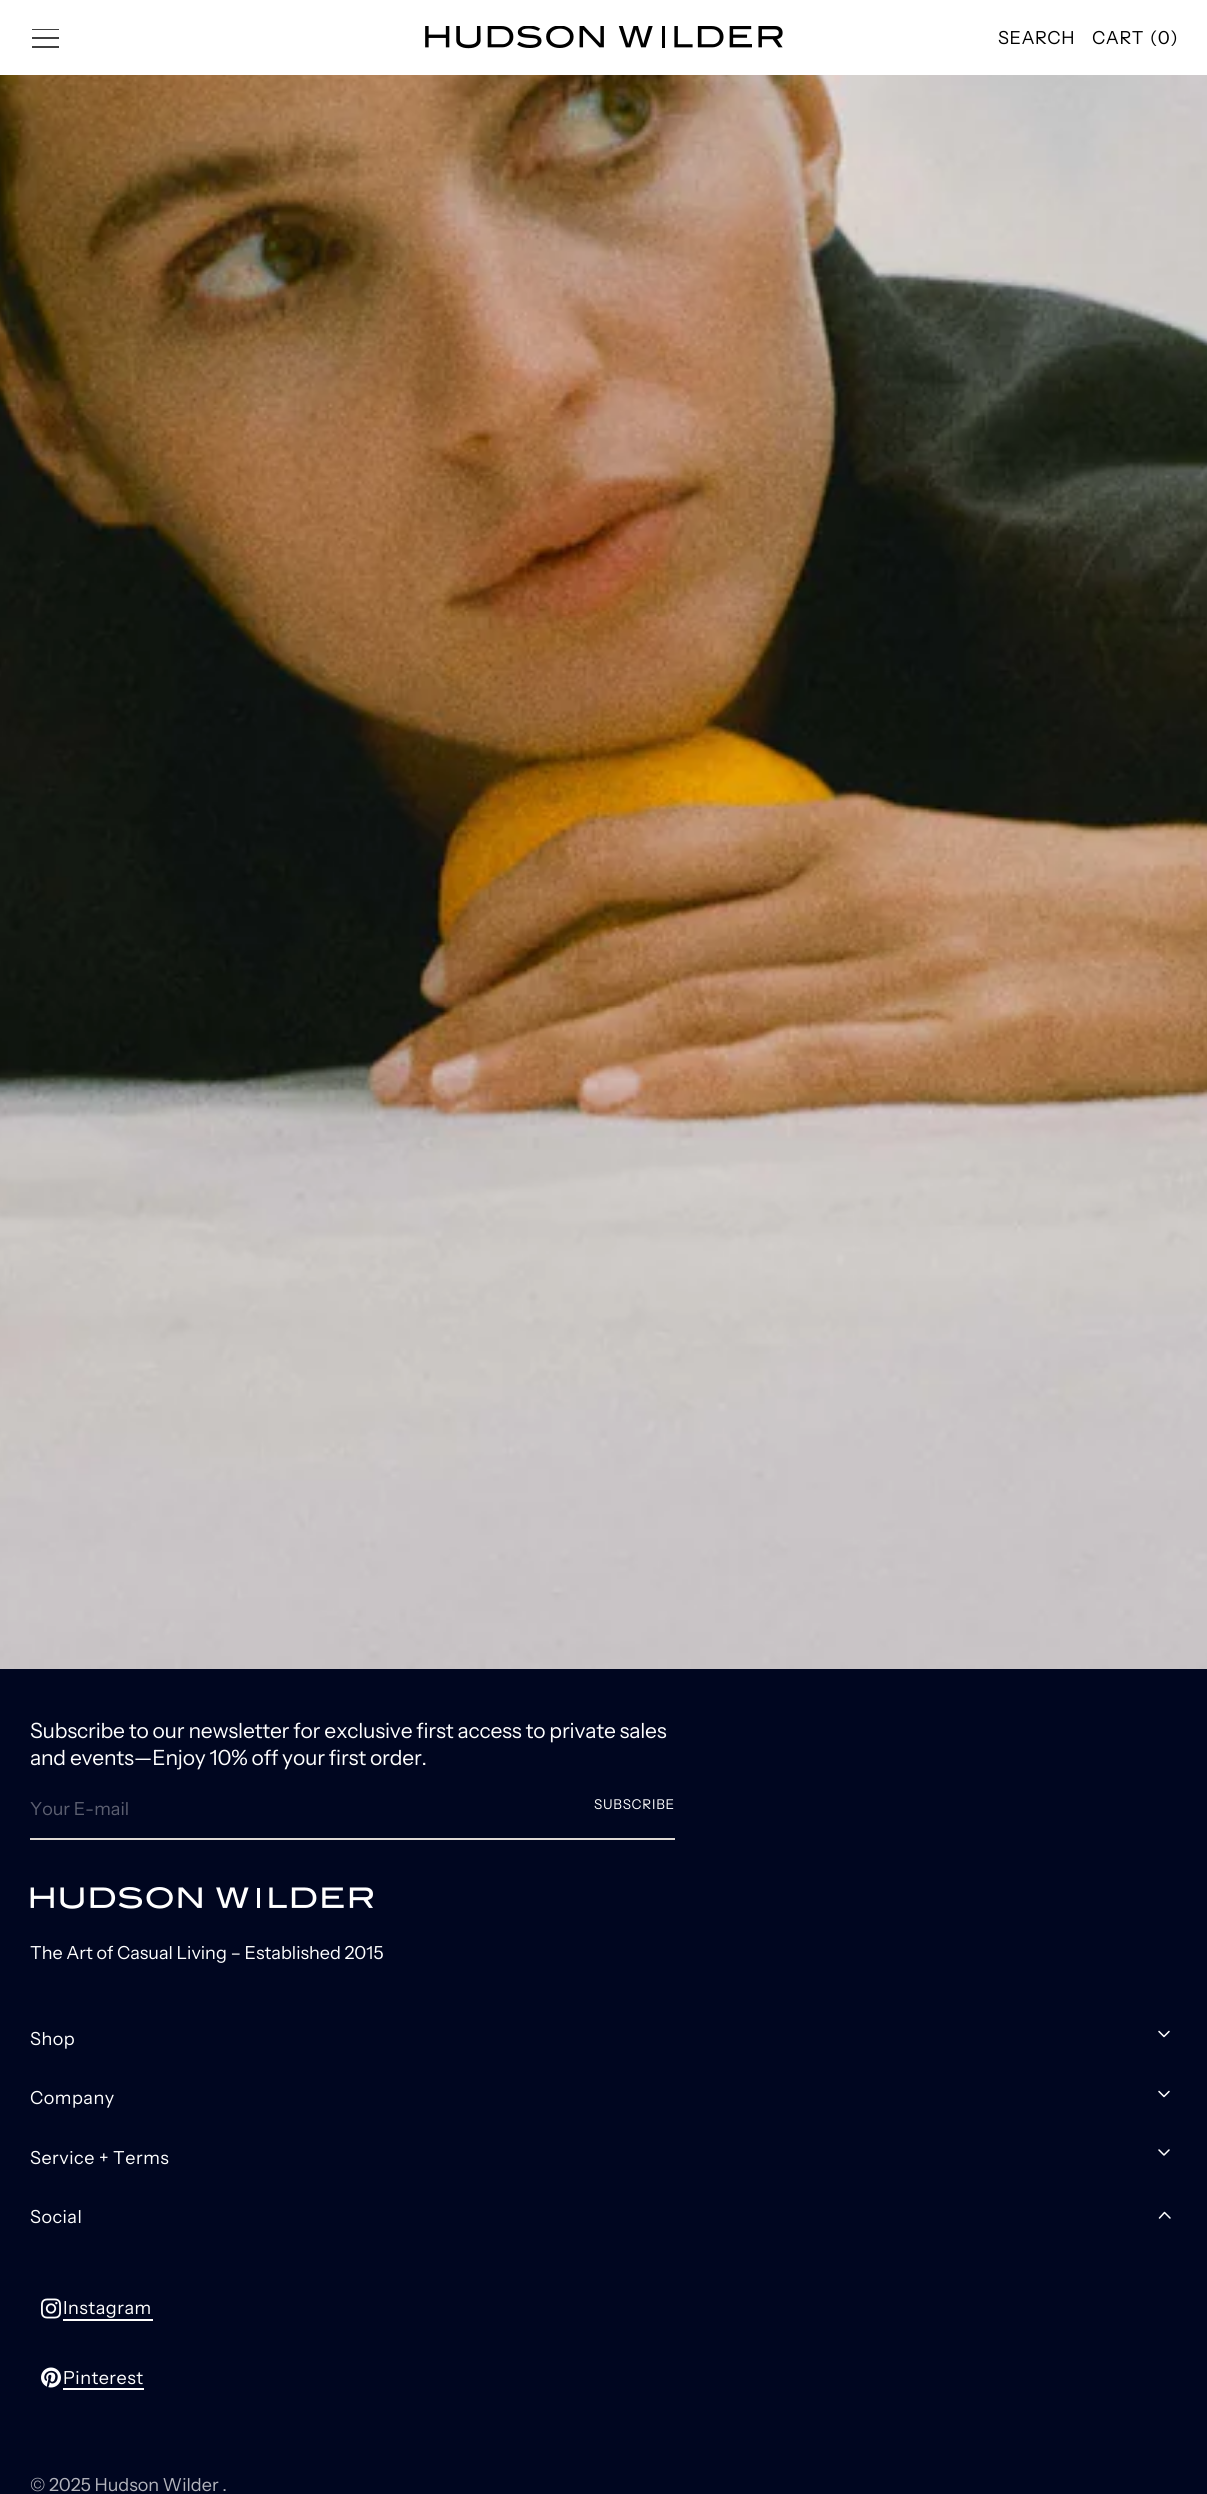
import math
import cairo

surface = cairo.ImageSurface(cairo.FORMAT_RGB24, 1207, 2494)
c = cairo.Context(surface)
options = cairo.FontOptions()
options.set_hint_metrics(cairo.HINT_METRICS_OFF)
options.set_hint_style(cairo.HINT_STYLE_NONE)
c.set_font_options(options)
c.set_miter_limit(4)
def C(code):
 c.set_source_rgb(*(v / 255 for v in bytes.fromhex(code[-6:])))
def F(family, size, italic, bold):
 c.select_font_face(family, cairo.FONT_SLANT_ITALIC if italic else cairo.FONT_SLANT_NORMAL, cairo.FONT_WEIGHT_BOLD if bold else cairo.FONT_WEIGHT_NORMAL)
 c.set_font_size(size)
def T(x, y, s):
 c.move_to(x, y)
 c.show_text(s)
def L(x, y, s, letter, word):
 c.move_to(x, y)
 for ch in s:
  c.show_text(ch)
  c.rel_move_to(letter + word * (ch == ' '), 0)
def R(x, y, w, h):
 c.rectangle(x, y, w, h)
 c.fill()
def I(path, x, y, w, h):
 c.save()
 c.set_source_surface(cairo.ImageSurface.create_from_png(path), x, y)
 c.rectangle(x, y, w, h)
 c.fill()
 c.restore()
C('000620')
c.paint()
C('ffffff')
R(0,0,1207,75)
C('404040')
R(32,29,27,1)
R(32,37,27,2)
R(32,46,27,2)
I('1.png',425,26,358,23)
F('Instrument Sans',18,0,0)
C('000000')
L(998,44,'SEARCH',.5,0)
L(1092,44,'CART',.5,0)
L(1150,44,'(0)',.5,0)
I('2.png',0,75,1207,1594)
F('Instrument Sans',21,0,0)
C('ffffff')
L(30,1738,'Subscribe to our newsletter for exclusive first access to private sales',-.2,0)
L(30,1765,'and events—Enjoy 10% off your first order.',-.2,0)
C('ded9d4')
R(30,1838,645,2)
F('Instrument Sans',18,0,0)
C('5c5f70')
T(30,1815,'Your E-mail')
F('Instrument Sans',13.5,0,0)
C('ffffff')
L(594,1809,'SUBSCRIBE',.75,0)
I('3.png',30,1887,343,22)
F('Instrument Sans',18,0,0)
T(30,1959,'The Art of Casual Living – Established 2015')
L(30,2045,'Shop',.5,0)
c.new_path()
c.move_to(1169,2031.5)
c.line_to(1164,2036.5)
c.line_to(1159,2031.5)
c.set_line_width(1.5)
c.set_line_cap(cairo.LINE_CAP_ROUND)
c.set_line_join(cairo.LINE_JOIN_ROUND)
c.stroke()
L(30,2104,'Company',.5,0)
c.new_path()
c.move_to(1169,2091.5)
c.line_to(1164,2096.5)
c.line_to(1159,2091.5)
c.stroke()
L(30,2164,'Service + Terms',.5,0)
c.new_path()
c.move_to(1169,2150)
c.line_to(1164,2155)
c.line_to(1159,2150)
c.stroke()
L(30,2223,'Social',.5,0)
c.new_path()
c.move_to(1159.5,2218)
c.line_to(1164.5,2212.5)
c.line_to(1170,2218)
c.stroke()
I('4.png',41,2298,20,21)
L(63,2314,'Instagram',.5,0)
R(63,2319,90,2)
I('5.png',41,2367,20,21)
L(63,2384,'Pinterest',.5,0)
R(63,2388,81,2)
C('b3b4bc')
T(30,2491,'© 2025 Hudson Wilder .')
surface.write_to_png('o.png')
